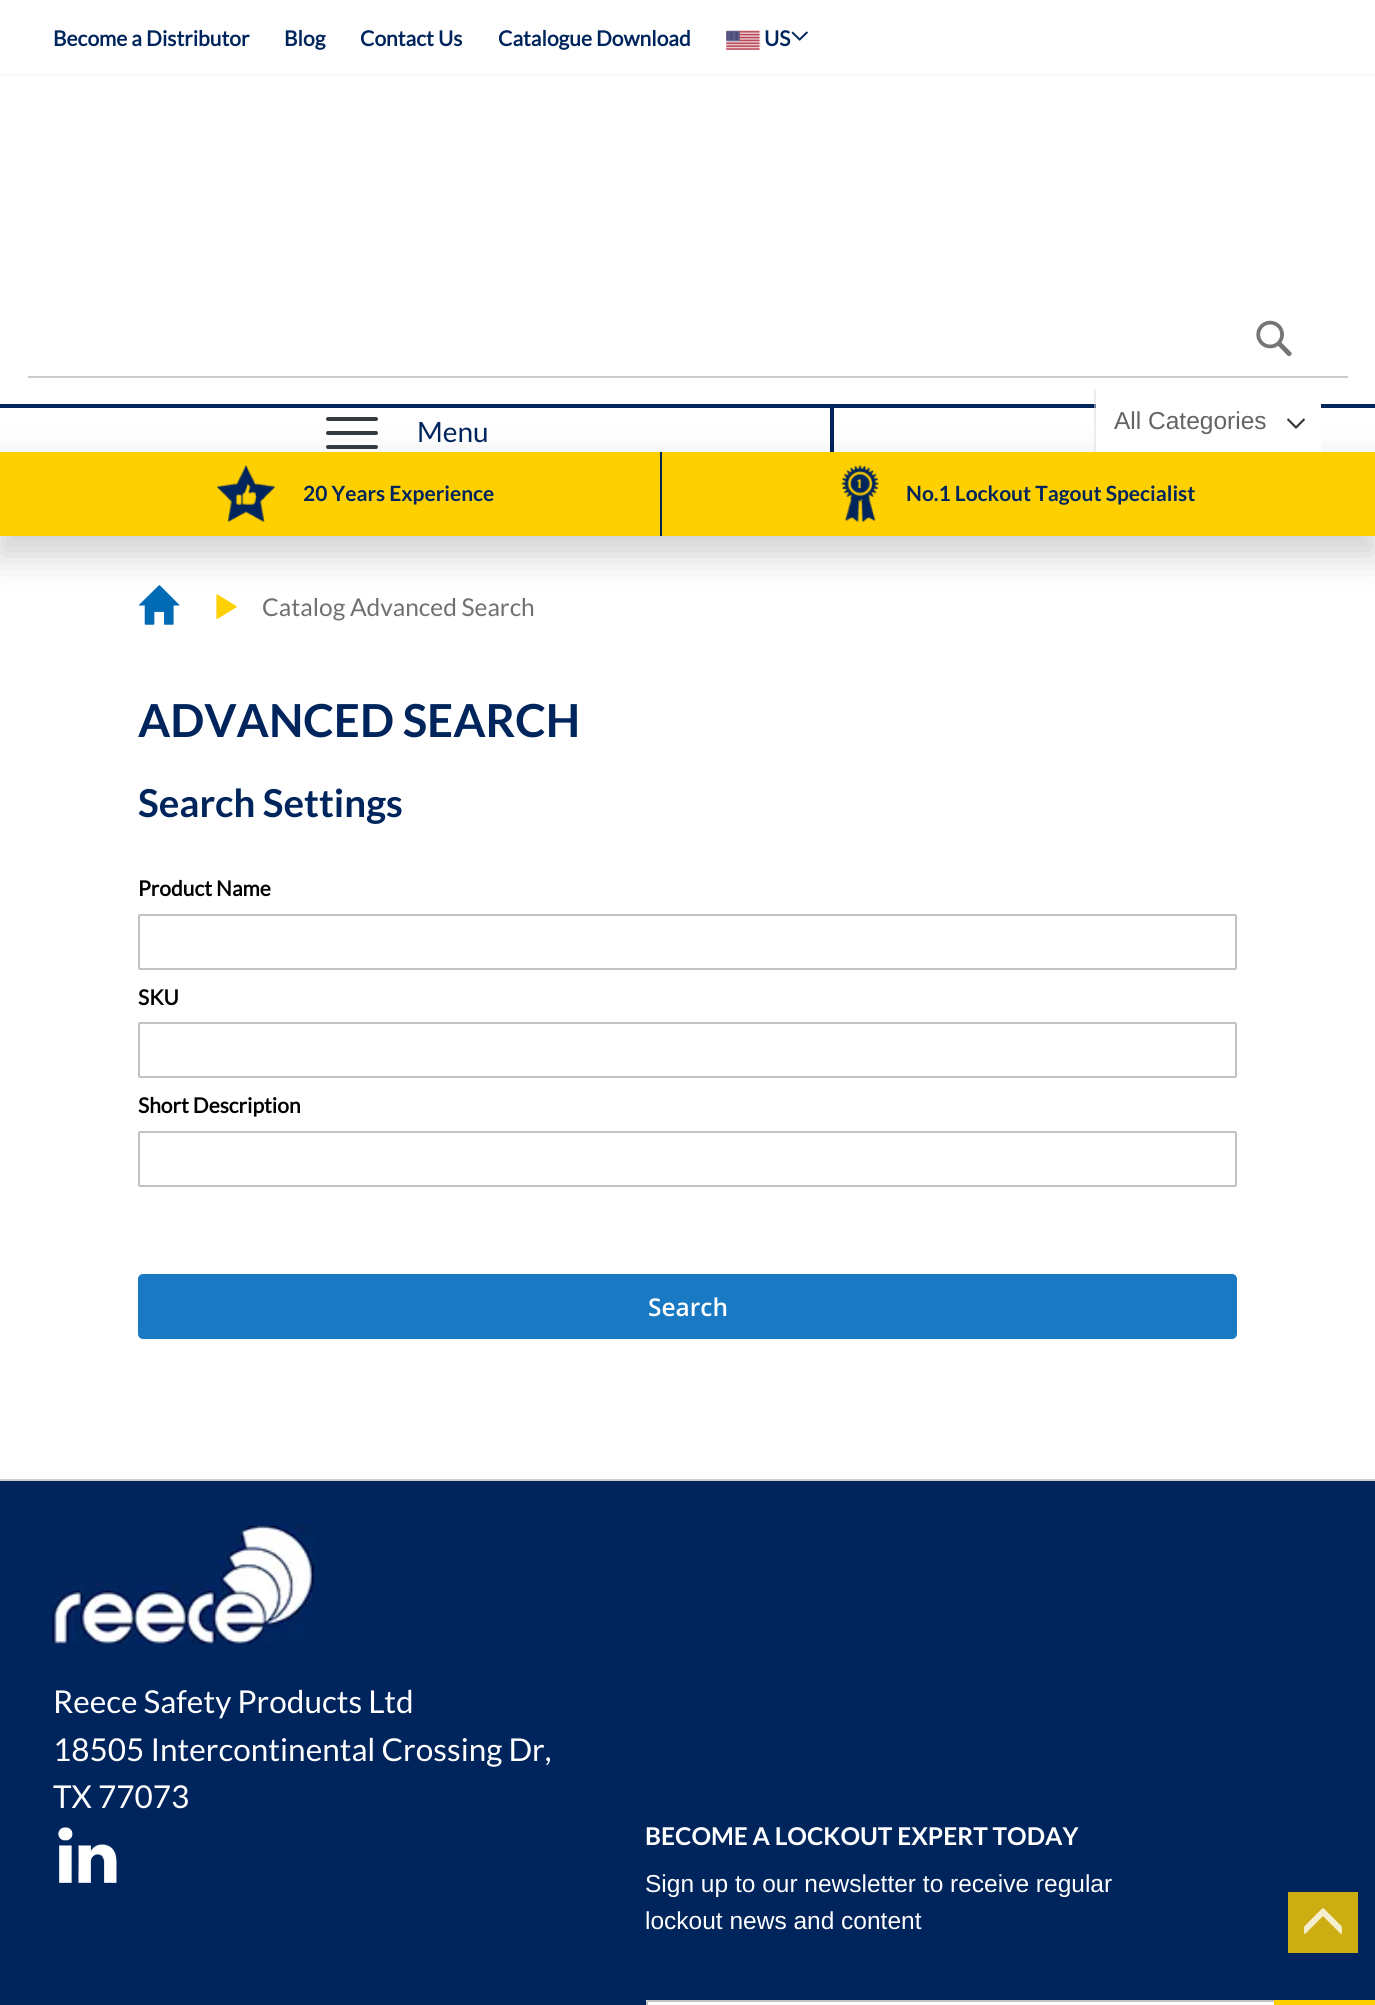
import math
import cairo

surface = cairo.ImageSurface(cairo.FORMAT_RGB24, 1375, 2005)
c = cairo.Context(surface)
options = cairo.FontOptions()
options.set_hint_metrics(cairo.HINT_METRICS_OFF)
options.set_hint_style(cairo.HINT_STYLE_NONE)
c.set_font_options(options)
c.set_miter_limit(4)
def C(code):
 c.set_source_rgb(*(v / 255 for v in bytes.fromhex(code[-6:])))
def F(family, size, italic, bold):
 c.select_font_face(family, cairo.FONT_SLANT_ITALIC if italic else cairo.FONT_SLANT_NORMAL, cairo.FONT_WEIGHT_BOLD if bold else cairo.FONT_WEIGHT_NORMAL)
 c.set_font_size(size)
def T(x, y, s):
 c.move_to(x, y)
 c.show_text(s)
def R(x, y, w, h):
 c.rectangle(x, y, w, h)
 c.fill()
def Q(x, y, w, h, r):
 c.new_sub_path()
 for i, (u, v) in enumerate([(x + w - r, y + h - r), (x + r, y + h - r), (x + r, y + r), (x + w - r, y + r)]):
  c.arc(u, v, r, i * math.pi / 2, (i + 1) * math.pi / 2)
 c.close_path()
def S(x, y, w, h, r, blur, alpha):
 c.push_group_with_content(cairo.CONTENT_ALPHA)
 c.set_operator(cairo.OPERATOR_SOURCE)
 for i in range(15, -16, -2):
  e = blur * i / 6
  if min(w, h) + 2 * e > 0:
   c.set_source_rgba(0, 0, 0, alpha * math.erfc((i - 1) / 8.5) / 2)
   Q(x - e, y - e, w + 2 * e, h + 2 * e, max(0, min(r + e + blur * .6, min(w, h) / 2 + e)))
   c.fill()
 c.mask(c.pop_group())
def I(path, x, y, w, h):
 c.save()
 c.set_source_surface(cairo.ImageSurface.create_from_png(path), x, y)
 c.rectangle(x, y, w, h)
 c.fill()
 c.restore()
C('ffffff')
c.paint()
C('000000')
S(0,2,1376,73,0,1,.05)
C('ffffff')
R(0,1,1375,73)
F('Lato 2',21,0,1)
C('00255d')
T(53,46,'Become a Distributor')
T(284,46,'Blog')
T(360,46,'Contact Us')
T(498,46,'Catalogue Download')
I('1.png',726,30,35,20)
T(764,46,'US')
I('2.png',791,31,17,10)
R(0,404,1375,4)
C('d0d0d0')
S(-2,467,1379,88,0,18.5,1)
C('343a40')
Q(326,445,52,4,2)
c.fill()
Q(326,431,52,4,2)
c.fill()
Q(326,417,52,4,2)
c.fill()
F('Lato',28,0,0)
C('00255d')
T(417,442,'Menu')
R(830,408,4,44)
I('3.png',1256,320,36,37)
C('cccccc')
R(28,376,1320,2)
c.save()
c.rectangle(0,0,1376,452)
c.clip()
C('ffffff')
c.new_path()
c.move_to(1096,387)
c.line_to(1320,387)
c.curve_to(1320,387,1321,388,1321,388)
c.line_to(1321,455)
c.curve_to(1321,456,1320,457,1320,457)
c.line_to(1096,457)
c.close_path()
c.fill()
c.restore()
C('333333')
c.set_fill_rule(cairo.FILL_RULE_EVEN_ODD)
c.new_path()
c.move_to(1296,429)
c.line_to(1305,420)
c.line_to(1304,418)
c.line_to(1296,426)
c.line_to(1288,418)
c.line_to(1287,420)
c.close_path()
c.fill()
c.set_source_rgba(0.867,0.867,0.867,0.5)
R(1094,389,2,63)
F('Liberation Sans',24.5,0,0)
C('636363')
T(1114,429,'All Categories')
C('ffd000')
R(0,452,1375,84)
C('00255d')
R(660,452,2,84)
I('4.png',217,465,58,57)
F('Lato',21,0,1)
T(303,501,'20 Years Experience')
I('5.png',841,465,38,57)
T(906,501,'No.1 Lockout Tagout Specialist')
I('6.png',138,585,42,40)
I('7.png',216,594,21,25)
F('Lato',24.5,0,0)
C('707070')
T(262,616,'Catalog Advanced Search')
F('Lato',45.5,0,1)
C('00255d')
T(138,737,'ADVANCED SEARCH')
F('Lato',38.5,0,1)
T(138,817,'Search Settings')
F('Lato 2',21,0,1)
C('000000')
T(138,896,'Product Name')
Q(139,915,1097,54,1)
C('c2c2c2')
c.stroke()
C('000000')
T(138,1005,'SKU')
Q(139,1023,1097,54,1)
C('c2c2c2')
c.stroke()
C('000000')
T(138,1113,'Short Description')
Q(139,1132,1097,54,1)
C('c2c2c2')
c.stroke()
C('1979c3')
Q(139,1275,1097,63,4)
c.fill_preserve()
c.stroke()
F('Open Sans SemiBold',24.5,0,0)
C('ffffff')
T(648,1316,'Search')
C('00255d')
R(0,1481,1375,524)
C('cecece')
R(0,1479,1375,2)
I('8.png',52,1526,263,118)
F('Lato',31.5,0,0)
C('ffffff')
T(53,1713,'Reece Safety Products Ltd')
T(53,1761,'18505 Intercontinental Crossing Dr,')
T(53,1808,'TX 77073')
I('9.png',58,1827,59,56)
F('Lato',24.5,0,1)
T(645,1845,'BECOME A LOCKOUT EXPERT TODAY')
F('Liberation Sans',24.5,0,0)
T(645,1892,'Sign up to our newsletter to receive regular')
T(645,1929,'lockout news and content')
R(646,2000,630,5)
Q(647,2001,628,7,1)
C('c2c2c2')
c.stroke()
C('ffd000')
R(1274,2000,101,5)
C('ccae13')
R(1288,1892,70,61)
I('10.png',1304,1908,38,26)
surface.write_to_png('o.png')
